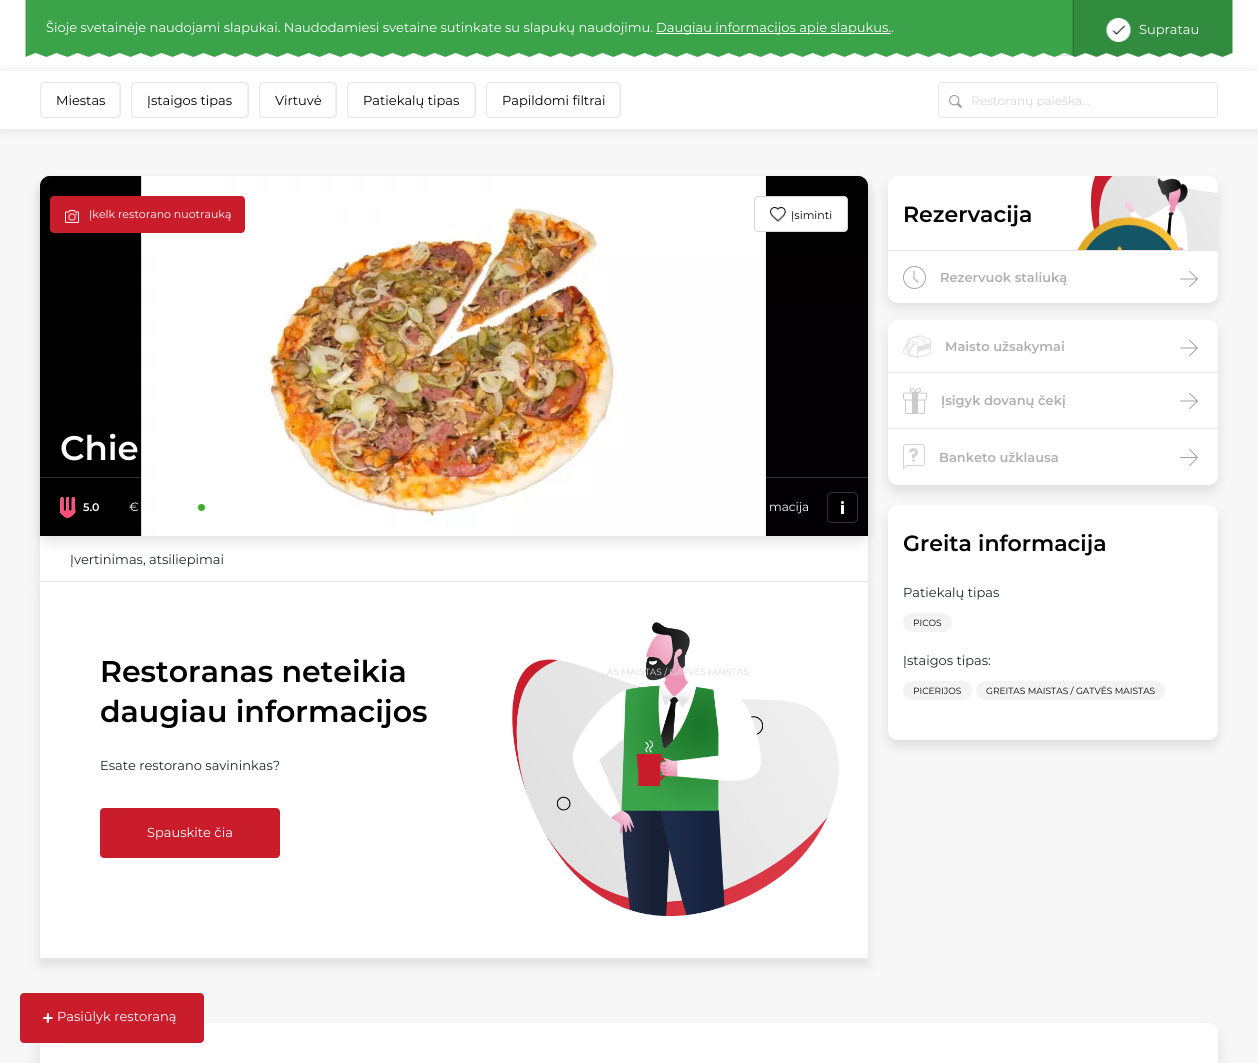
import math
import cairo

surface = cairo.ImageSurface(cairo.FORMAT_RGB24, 1258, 1063)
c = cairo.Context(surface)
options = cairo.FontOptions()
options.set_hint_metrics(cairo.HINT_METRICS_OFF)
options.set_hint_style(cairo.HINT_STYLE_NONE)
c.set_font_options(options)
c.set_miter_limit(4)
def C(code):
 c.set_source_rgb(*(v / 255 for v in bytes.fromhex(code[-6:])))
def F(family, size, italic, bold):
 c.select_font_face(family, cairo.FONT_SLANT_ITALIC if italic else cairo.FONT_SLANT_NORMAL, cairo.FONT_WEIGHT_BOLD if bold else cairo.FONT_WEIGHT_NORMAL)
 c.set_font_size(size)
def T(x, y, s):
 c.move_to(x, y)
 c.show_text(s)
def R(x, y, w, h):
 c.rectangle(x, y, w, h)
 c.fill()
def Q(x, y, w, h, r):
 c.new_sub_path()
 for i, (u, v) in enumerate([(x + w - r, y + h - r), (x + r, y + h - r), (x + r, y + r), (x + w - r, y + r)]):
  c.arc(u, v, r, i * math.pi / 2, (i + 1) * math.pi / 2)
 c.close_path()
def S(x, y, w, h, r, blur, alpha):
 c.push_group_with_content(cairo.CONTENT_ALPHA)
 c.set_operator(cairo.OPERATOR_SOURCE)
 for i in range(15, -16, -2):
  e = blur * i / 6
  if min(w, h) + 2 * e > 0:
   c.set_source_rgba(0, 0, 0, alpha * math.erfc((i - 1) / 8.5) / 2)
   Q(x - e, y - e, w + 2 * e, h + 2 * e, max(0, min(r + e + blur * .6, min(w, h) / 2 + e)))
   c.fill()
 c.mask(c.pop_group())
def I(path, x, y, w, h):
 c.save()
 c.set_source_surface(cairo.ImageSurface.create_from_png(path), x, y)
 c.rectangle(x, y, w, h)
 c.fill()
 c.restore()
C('f7f7f7')
c.paint()
C('ffffff')
R(0,0,1258,71)
C('000000')
S(0,71,1258,58,0,5,.1)
C('e5e5e5')
c.set_fill_rule(cairo.FILL_RULE_EVEN_ODD)
c.new_path()
c.move_to(1050,17)
c.line_to(1073,17)
c.line_to(1073,56)
c.line_to(1050,56)
c.curve_to(1047,56,1045,54,1045,51)
c.line_to(1045,22)
c.curve_to(1045,19,1047,17,1050,17)
c.close_path()
c.move_to(1050,18)
c.line_to(1073,18)
c.line_to(1073,55)
c.line_to(1050,55)
c.curve_to(1048,55,1046,53,1046,51)
c.line_to(1046,22)
c.curve_to(1046,20,1048,18,1050,18)
c.close_path()
c.fill()
C('e6e6e6')
c.new_path()
c.move_to(1086,17)
c.line_to(1157,17)
c.curve_to(1160,17,1162,19,1162,22)
c.line_to(1162,49)
c.curve_to(1162,52,1160,54,1157,54)
c.line_to(1086,54)
c.close_path()
c.move_to(1086,18)
c.line_to(1157,18)
c.curve_to(1159,18,1161,20,1161,22)
c.line_to(1161,49)
c.curve_to(1161,51,1159,53,1157,53)
c.line_to(1086,53)
c.close_path()
c.fill()
I('1.png',25,0,1208,57)
F('Montserrat',13,0,0)
C('ffffff')
T(46,32,'Šioje svetainėje naudojami slapukai. Naudodamiesi svetaine sutinkate su slapukų naudojimu.')
R(656,33,235,1)
T(656,32,'Daugiau informacijos apie slapukus..')
c.set_source_rgba(0,0,0,0.1)
R(1073,0,1,57)
I('2.png',1106,18,25,24)
C('ffffff')
T(1139,34,'Supratau')
R(0,71,1258,58)
C('f2f2f2')
c.set_fill_rule(cairo.FILL_RULE_WINDING)
c.new_path()
c.move_to(115,117)
c.curve_to(120.5,117,120,113.5,120,108.5)
c.line_to(120,91.5)
c.curve_to(120,86.5,120.5,83,115,83)
c.curve_to(117,83,119,85,119,87)
c.line_to(119,113)
c.curve_to(119,115,117,117,115,117)
c.close_path()
c.fill()
Q(40.5,82.5,80,35,4.5)
C('e5e5e5')
c.set_line_width(1)
c.stroke()
C('000000')
T(56,105,'Miestas')
C('f2f2f2')
c.new_path()
c.move_to(243,117)
c.curve_to(248.5,117,248,113.5,248,108.5)
c.line_to(248,91.5)
c.curve_to(248,86.5,248.5,83,243,83)
c.curve_to(245,83,247,85,247,87)
c.line_to(247,113)
c.curve_to(247,115,245,117,243,117)
c.close_path()
c.fill()
Q(131.5,82.5,117,35,4.5)
C('e5e5e5')
c.stroke()
C('000000')
T(147,105,'Įstaigos tipas')
C('f2f2f2')
c.new_path()
c.move_to(331,117)
c.curve_to(336.5,117,336,113.5,336,108.5)
c.line_to(336,91.5)
c.curve_to(336,86.5,336.5,83,331,83)
c.curve_to(333,83,335,85,335,87)
c.line_to(335,113)
c.curve_to(335,115,333,117,331,117)
c.close_path()
c.fill()
Q(259.5,82.5,77,35,4.5)
C('e5e5e5')
c.stroke()
C('000000')
T(275,105,'Virtuvė')
C('f2f2f2')
c.new_path()
c.move_to(470,117)
c.curve_to(475.5,117,475,113.5,475,108.5)
c.line_to(475,91.5)
c.curve_to(475,86.5,475.5,83,470,83)
c.curve_to(472,83,474,85,474,87)
c.line_to(474,113)
c.curve_to(474,115,472,117,470,117)
c.close_path()
c.fill()
Q(347.5,82.5,128,35,4.5)
C('e5e5e5')
c.stroke()
C('000000')
T(363,105,'Patiekalų tipas')
C('f2f2f2')
c.new_path()
c.move_to(615,117)
c.curve_to(620.5,117,620,113.5,620,108.5)
c.line_to(620,91.5)
c.curve_to(620,86.5,620.5,83,615,83)
c.curve_to(617,83,619,85,619,87)
c.line_to(619,113)
c.curve_to(619,115,617,117,615,117)
c.close_path()
c.fill()
Q(486.5,82.5,134,35,4.5)
C('e5e5e5')
c.stroke()
C('000000')
T(502,105,'Papildomi filtrai')
Q(938.5,82.5,279,35,4.5)
C('e6e6e6')
c.stroke()
I('3.png',949,95,13,13)
F('Montserrat',12,0,0)
C('d6d6d6')
T(971,105,'Restoranų paieška...')
C('000000')
S(40,183,828,406,10,5.5,.1)
C('ffffff')
c.new_path()
c.move_to(50,176)
c.line_to(858,176)
c.curve_to(863.5,176,868,180.5,868,186)
c.line_to(868,582)
c.line_to(40,582)
c.line_to(40,186)
c.curve_to(40,180.5,44.5,176,50,176)
c.close_path()
c.fill()
C('000000')
S(40,183,828,360,10,5.5,.1)
I('4.png',40,176,828,360)
I('5.png',40,176,828,360)
C('c91d2c')
Q(50,196,195,37,4)
c.fill()
I('6.png',65,210,14,13)
F('Montserrat',11,0,0)
C('ffffff')
T(89,218,'Įkelk restorano nuotrauką')
Q(754.5,196.5,93,35,3.5)
c.fill_preserve()
C('d7d3d3')
c.stroke()
I('7.png',770,207,16,15)
C('000000')
T(791,219,'Įsiminti')
c.set_source_rgba(1,1,1,0.19)
R(40,477,828,1)
F('Montserrat SemiBold',34,0,0)
C('ffffff')
T(60,460,'Chie')
I('8.png',60,497,16,21)
I('9.png',60,497,16,21)
F('Montserrat SemiBold',11,0,0)
T(83,511,'5.0')
F('Montserrat',12,0,0)
T(129,511,'€')
C('39b12e')
c.new_path()
c.arc(201.5,507.5,3.5,0,2 * math.pi)
c.fill()
C('ffffff')
T(769,511,'macija')
I('10.png',841,501,3,13)
Q(827.5,492.5,30,30,4.5)
C('353233')
c.stroke()
C('e6e6e6')
R(40,581,828,1)
C('000000')
S(40,589,828,376,0,5.5,.1)
C('ffffff')
R(40,582,828,376)
I('11.png',512,622,327,294)
F('Montserrat',9,0,0)
C('ded8da')
T(607,675,'AS MAISTAS / GATVĖS MAISTAS')
F('Montserrat',13,0,0)
C('212529')
T(70,564,'Įvertinimas, atsiliepimai')
F('Montserrat SemiBold',30,0,0)
C('000000')
T(100,682,'Restoranas neteikia')
T(100,722,'daugiau informacijos')
F('Montserrat',13,0,0)
C('212529')
T(100,770,'Esate restorano savininkas?')
C('c91d2c')
Q(100,808,180,50,4)
c.fill()
C('ffffff')
T(147,837,'Spauskite čia')
C('000000')
S(888,183,330,124,10,5.5,.1)
C('ffffff')
Q(888,176,330,124,10)
c.fill()
I('12.png',1077,176,141,119)
F('Montserrat SemiBold',22,0,0)
C('000000')
T(903,222,'Rezervacija')
C('ffffff')
c.new_path()
c.move_to(888,250)
c.line_to(1218,250)
c.line_to(1218,294)
c.curve_to(1218,299.5,1213.5,304,1208,304)
c.line_to(898,304)
c.curve_to(892.5,304,888,299.5,888,294)
c.close_path()
c.fill()
c.set_source_rgba(0,0,0,0.1)
c.new_path()
c.move_to(888,293)
c.line_to(888,294)
c.curve_to(888,300,892,304,898,304)
c.line_to(1208,304)
c.curve_to(1214,304,1218,300,1218,294)
c.line_to(1218,293)
c.curve_to(1218,299,1214,303,1208,303)
c.line_to(898,303)
c.curve_to(892,303,888,299,888,293)
c.close_path()
c.fill()
C('e5e5e5')
R(888,250,330,1)
I('13.png',903,266,23,23)
F('Montserrat SemiBold',13,0,0)
C('b0b0b0')
T(940,282,'Rezervuok staliuką')
I('14.png',1180,271,18,16)
C('000000')
S(888,327,330,165,10,5.5,.1)
C('ffffff')
Q(888,320,330,165,10)
c.fill()
C('e6e6e6')
R(888,372,330,1)
I('15.png',903,335,28,23)
C('b0b0b0')
T(945,351,'Maisto užsakymai')
I('14.png',1180,340,18,16)
C('e6e6e6')
R(888,428,330,1)
I('16.png',903,388,24,26)
C('b0b0b0')
T(941,405,'Įsigyk dovanų čekį')
I('14.png',1180,393,18,16)
I('17.png',903,444,22,26)
T(939,462,'Banketo užklausa')
I('18.png',1180,449,18,17)
C('000000')
S(888,512,330,235,10,5.5,.1)
C('ffffff')
Q(888,505,330,235,10)
c.fill()
F('Montserrat SemiBold',22,0,0)
C('000000')
T(903,551,'Greita informacija')
F('Montserrat',13,0,0)
C('212529')
T(903,597,'Patiekalų tipas')
C('f3f3f3')
Q(903,613,49,19,9.5)
c.fill()
F('Montserrat',9,0,0)
C('000000')
T(913,626,'PICOS')
F('Montserrat',13,0,0)
C('212529')
T(903,665,'Įstaigos tipas:')
C('f3f3f3')
Q(903,681,69,19,9.5)
c.fill()
F('Montserrat',9,0,0)
C('000000')
T(913,694,'PICERIJOS')
C('f3f3f3')
Q(976,681,189,19,9.5)
c.fill()
C('000000')
T(986,694,'GREITAS MAISTAS / GATVĖS MAISTAS')
C('000000')
S(40,1033,1178,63,10,7.5,.1)
C('ffffff')
Q(40,1023,1178,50,10)
c.fill()
C('c91d2c')
Q(20,993,184,50,4)
c.fill()
F('Montserrat SemiBold',20,0,0)
C('ffffff')
T(42,1025,'+')
F('Montserrat',13,0,0)
T(57,1021,'Pasiūlyk restoraną')
surface.write_to_png('o.png')
